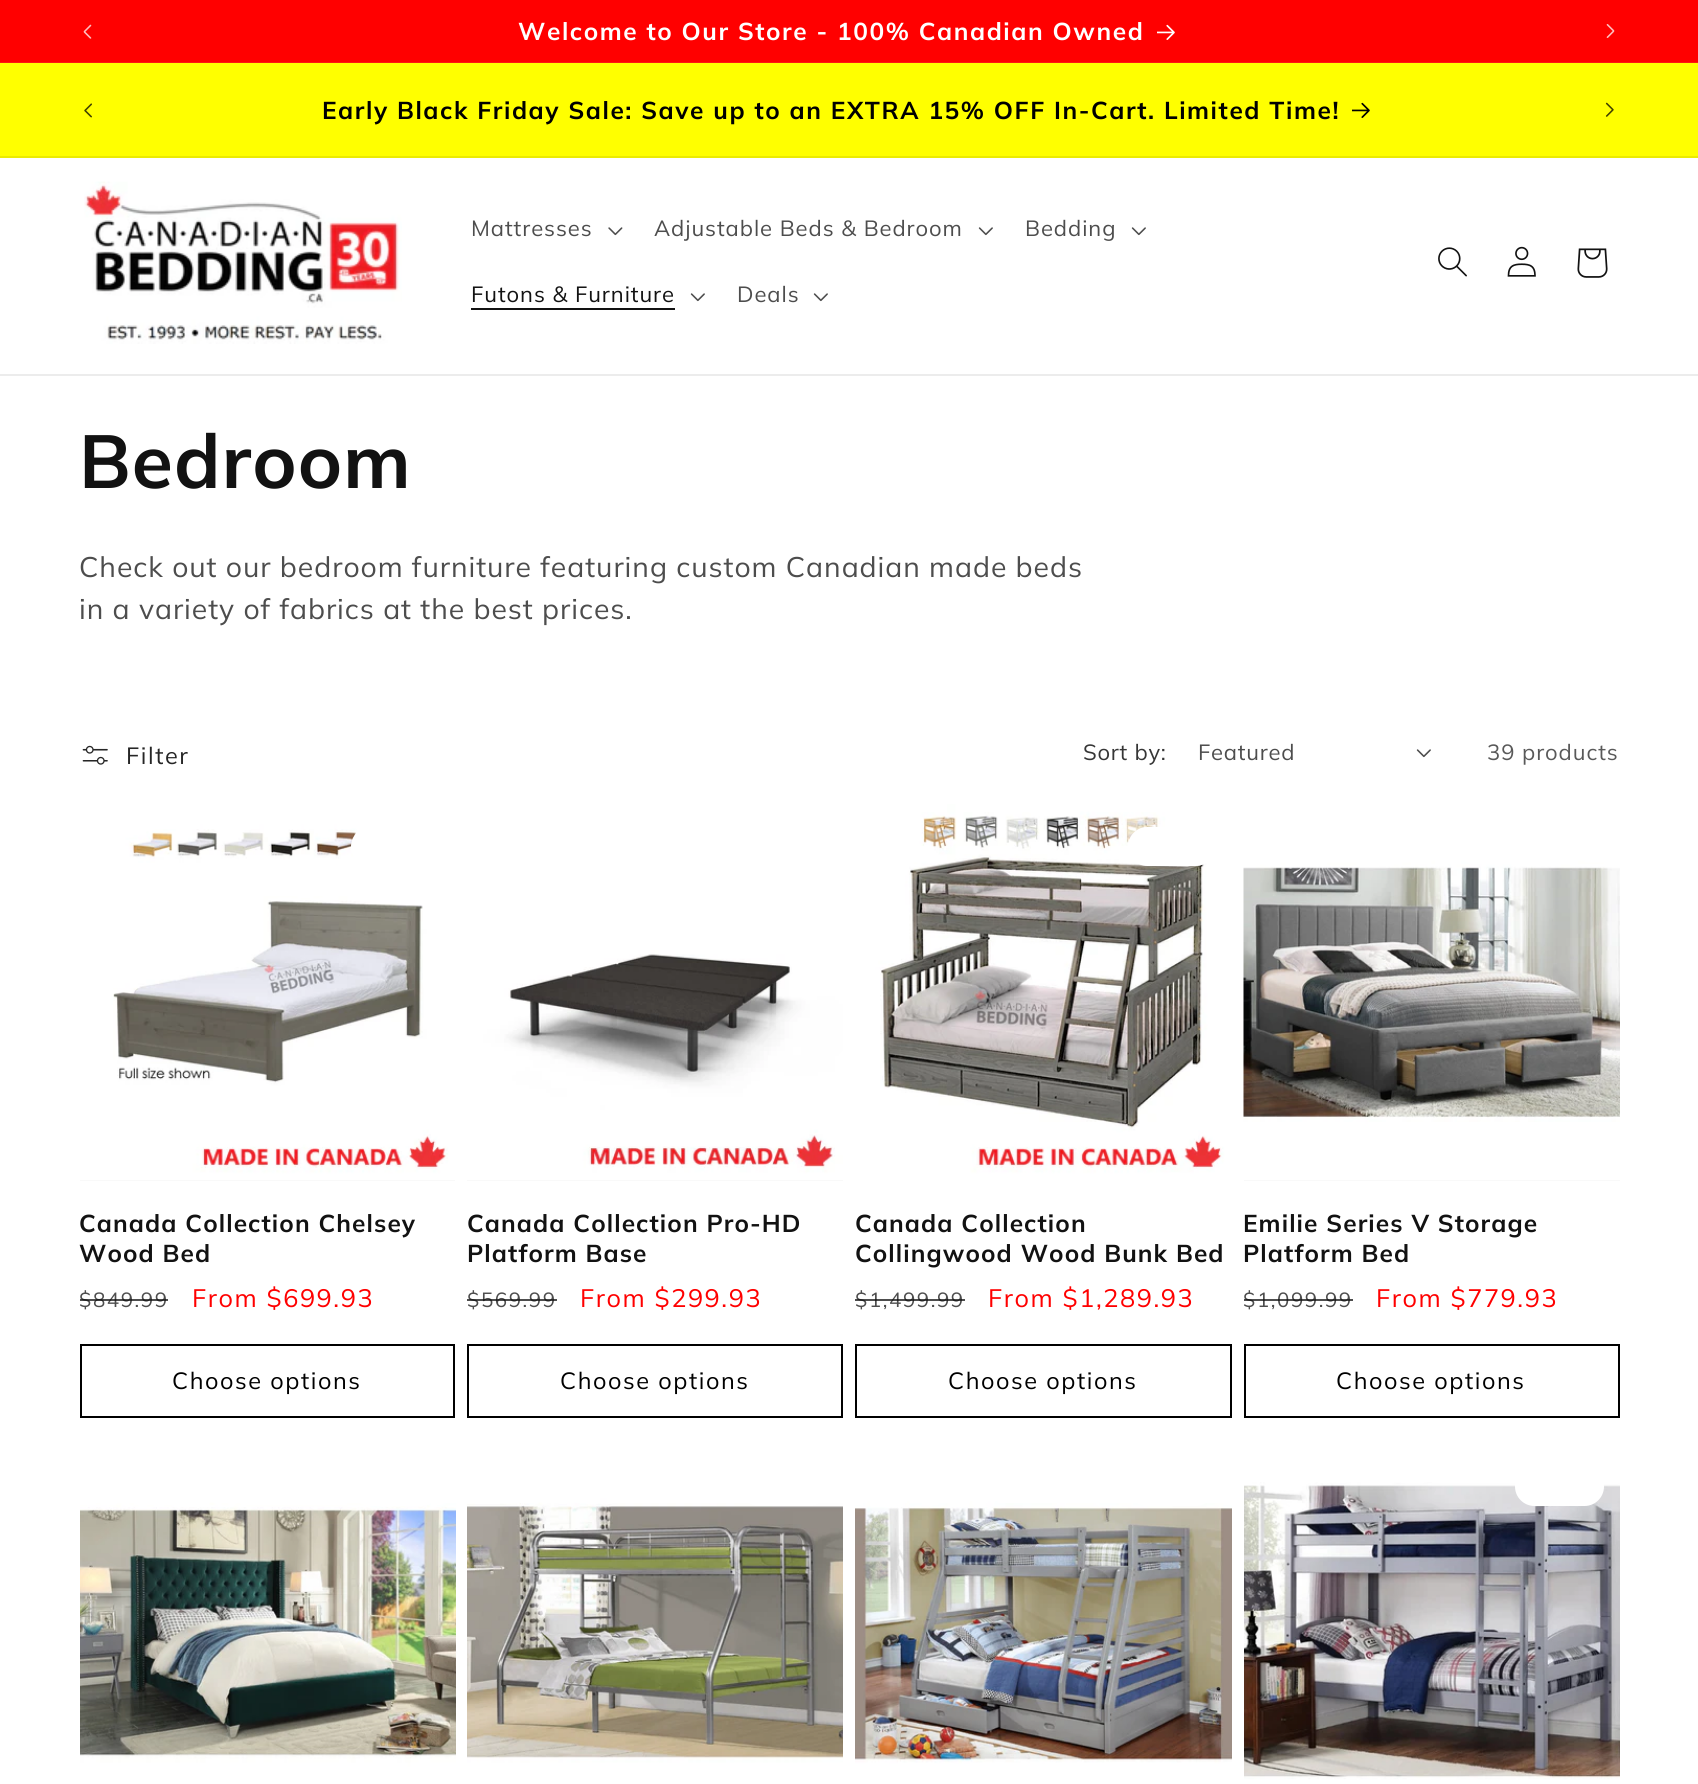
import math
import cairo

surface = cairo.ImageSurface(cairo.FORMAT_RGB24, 1698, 1784)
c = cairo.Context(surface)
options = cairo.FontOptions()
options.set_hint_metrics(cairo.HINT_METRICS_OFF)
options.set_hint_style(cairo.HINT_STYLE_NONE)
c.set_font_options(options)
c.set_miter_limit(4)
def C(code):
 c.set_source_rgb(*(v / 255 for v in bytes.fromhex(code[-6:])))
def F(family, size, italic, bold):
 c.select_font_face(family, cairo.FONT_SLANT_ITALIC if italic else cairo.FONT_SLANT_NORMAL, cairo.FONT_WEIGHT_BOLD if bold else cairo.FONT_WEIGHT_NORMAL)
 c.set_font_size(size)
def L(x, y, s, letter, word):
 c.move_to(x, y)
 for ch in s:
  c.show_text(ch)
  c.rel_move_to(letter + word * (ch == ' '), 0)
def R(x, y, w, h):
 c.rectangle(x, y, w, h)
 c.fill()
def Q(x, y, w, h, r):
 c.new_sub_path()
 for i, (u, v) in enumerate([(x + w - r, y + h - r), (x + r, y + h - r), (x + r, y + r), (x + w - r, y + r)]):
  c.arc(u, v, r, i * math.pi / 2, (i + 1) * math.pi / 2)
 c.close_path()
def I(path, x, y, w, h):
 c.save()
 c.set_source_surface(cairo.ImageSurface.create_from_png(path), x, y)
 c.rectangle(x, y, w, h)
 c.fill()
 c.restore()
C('ffffff')
c.paint()
C('ff0000')
R(0,0,1698,62)
C('ff1414')
R(0,62,1698,1)
I('1.png',83,24,9,15)
F('Muli',24.4,0,1)
C('ffffff')
L(518,40,'Welcome to Our Store - 100% Canadian Owned',1.58,0)
I('2.png',1157,24,18,16)
I('3.png',1606,24,9,14)
C('ffff00')
R(0,63,1698,93)
C('ebeb00')
R(0,156,1698,2)
I('4.png',84,103,8,15)
C('000000')
L(322,119,'Early Black Friday Sale: Save up to an EXTRA 15% OFF In-Cart. Limited Time!',1.58,0)
I('5.png',1352,102,18,16)
I('6.png',1605,102,9,15)
C('ececec')
R(0,374,1698,2)
I('7.png',84,181,318,163)
F('Muli',22,0,0)
C('4d4d4d')
L(471,236,'Mattresses',.95,0)
I('8.png',608,227,15,9)
L(654,236,'Adjustable Beds & Bedroom',.95,0)
I('9.png',978,227,15,9)
L(1025,236,'Bedding',.95,0)
I('9.png',1131,227,15,9)
C('121212')
L(471,302,'Futons & Furniture',.95,0)
R(471,308,204,2)
I('9.png',690,293,15,9)
C('4d4d4d')
L(737,302,'Deals',.95,0)
I('9.png',813,293,15,9)
I('10.png',1438,247,29,30)
I('11.png',1507,246,29,31)
I('12.png',1577,248,31,30)
F('Muli',75,0,1)
C('121212')
L(79,488,'Bedroom',1.1,0)
F('Muli',28.35,0,0)
C('4d4d4d')
L(79,577,'Check out our bedroom furniture featuring custom Canadian made beds',.95,0)
L(79,619,'in a variety of fabrics at the best prices.',.95,0)
I('13.png',82,745,26,20)
F('Muli',23.5,0,0)
C('262626')
L(126,764,'Filter',1.58,0)
F('Muli',22,0,0)
C('363636')
L(1083,760,'Sort by:',.75,0)
C('4d4d4d')
L(1198,760,'Featured',.75,0)
I('9.png',1416,749,15,9)
C('595959')
L(1487,760,'39 products',.95,0)
C('f3f3f3')
R(80,1180,375,1)
I('14.png',80,804,375,377)
C('ffffff')
Q(351,827,89,39,19.5)
c.fill()
Q(352,828,87,37,18.5)
c.set_source_rgba(1,1,1,0.1)
c.stroke()
F('Muli',24.4,0,1)
C('121212')
L(79,1232,'Canada Collection Chelsey',1.1,0)
L(79,1262,'Wood Bed',1.1,0)
F('Muli',20.5,0,0)
C('4d4d4d')
L(79,1307,'$849.99',1.58,0)
c.set_source_rgba(0.071,0.071,0.071,0.75)
R(80,1299,88,2)
F('Muli',25.25,0,0)
C('ff0000')
L(192,1307,'From $699.93',1.58,0)
c.rectangle(81,1345,373,72)
C('000000')
c.stroke()
F('Muli',23.5,0,0)
L(172,1389,'Choose options',1.58,0)
C('f3f3f3')
R(467,1180,376,1)
I('15.png',467,804,376,377)
F('Muli',24.4,0,1)
C('121212')
L(467,1232,'Canada Collection Pro-HD',1.1,0)
L(467,1262,'Platform Base',1.1,0)
F('Muli',20.5,0,0)
C('4d4d4d')
L(467,1307,'$569.99',1.58,0)
c.set_source_rgba(0.071,0.071,0.071,0.75)
R(467,1299,90,2)
F('Muli',25.25,0,0)
C('ff0000')
L(580,1307,'From $299.93',1.58,0)
c.rectangle(468,1345,374,72)
C('000000')
c.stroke()
F('Muli',23.5,0,0)
L(560,1389,'Choose options',1.58,0)
I('16.png',855,804,377,377)
C('ffffff')
Q(1128,827,87,39,19.5)
c.fill()
Q(1129,828,85,37,18.5)
c.set_source_rgba(1,1,1,0.1)
c.stroke()
F('Muli',24.4,0,1)
C('121212')
L(855,1232,'Canada Collection',1.1,0)
L(855,1262,'Collingwood Wood Bunk Bed',1.1,0)
F('Muli',20.5,0,0)
C('4d4d4d')
L(855,1307,'$1,499.99',1.58,0)
c.set_source_rgba(0.071,0.071,0.071,0.75)
R(855,1299,110,2)
F('Muli',25.25,0,0)
C('ff0000')
L(988,1307,'From $1,289.93',1.58,0)
c.rectangle(856,1345,375,72)
C('000000')
c.stroke()
F('Muli',23.5,0,0)
L(948,1389,'Choose options',1.58,0)
C('f3f3f3')
R(1244,1180,376,1)
I('17.png',1243,804,377,377)
F('Muli',24.4,0,1)
C('121212')
L(1243,1232,'Emilie Series V Storage',1.1,0)
L(1243,1262,'Platform Bed',1.1,0)
F('Muli',20.5,0,0)
C('4d4d4d')
L(1243,1307,'$1,099.99',1.58,0)
c.set_source_rgba(0.071,0.071,0.071,0.75)
R(1244,1299,109,2)
F('Muli',25.25,0,0)
C('ff0000')
L(1376,1307,'From $779.93',1.58,0)
c.rectangle(1245,1345,374,72)
C('000000')
c.stroke()
F('Muli',23.5,0,0)
L(1336,1389,'Choose options',1.58,0)
I('18.png',80,1445,376,339)
C('ffffff')
Q(351,1467,89,39,19.5)
c.fill()
I('19.png',467,1445,376,339)
Q(740,1467,88,39,19.5)
c.fill()
I('20.png',855,1445,377,339)
Q(1128,1467,87,39,19.5)
c.fill()
I('21.png',1244,1445,376,339)
Q(1515,1467,89,39,19.5)
c.fill()
surface.write_to_png('o.png')
